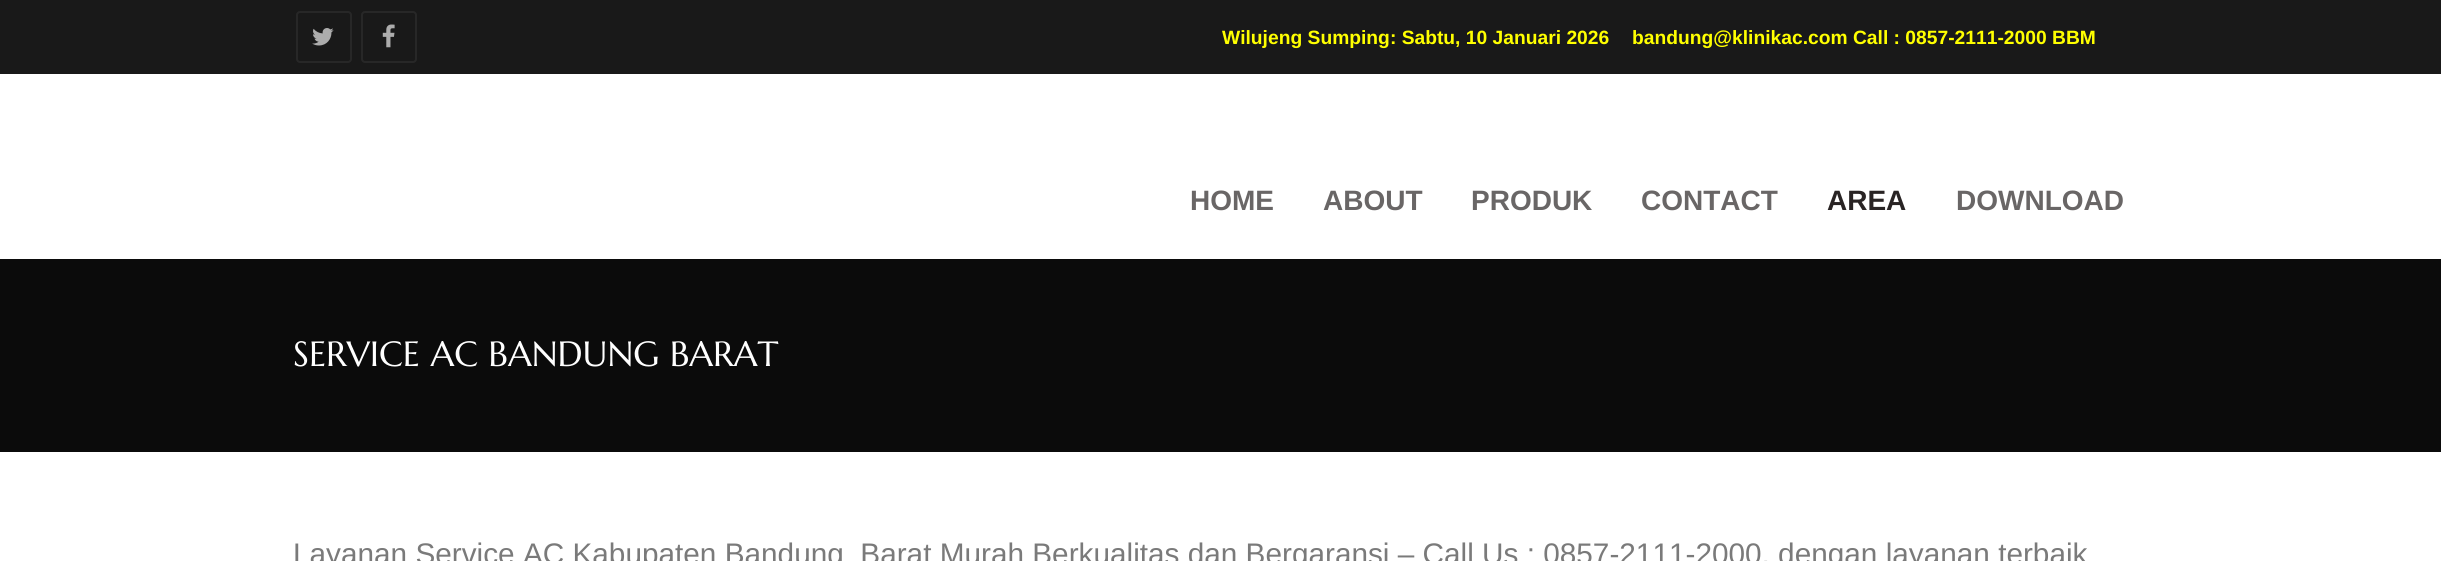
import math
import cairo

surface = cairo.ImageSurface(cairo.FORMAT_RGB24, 2441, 561)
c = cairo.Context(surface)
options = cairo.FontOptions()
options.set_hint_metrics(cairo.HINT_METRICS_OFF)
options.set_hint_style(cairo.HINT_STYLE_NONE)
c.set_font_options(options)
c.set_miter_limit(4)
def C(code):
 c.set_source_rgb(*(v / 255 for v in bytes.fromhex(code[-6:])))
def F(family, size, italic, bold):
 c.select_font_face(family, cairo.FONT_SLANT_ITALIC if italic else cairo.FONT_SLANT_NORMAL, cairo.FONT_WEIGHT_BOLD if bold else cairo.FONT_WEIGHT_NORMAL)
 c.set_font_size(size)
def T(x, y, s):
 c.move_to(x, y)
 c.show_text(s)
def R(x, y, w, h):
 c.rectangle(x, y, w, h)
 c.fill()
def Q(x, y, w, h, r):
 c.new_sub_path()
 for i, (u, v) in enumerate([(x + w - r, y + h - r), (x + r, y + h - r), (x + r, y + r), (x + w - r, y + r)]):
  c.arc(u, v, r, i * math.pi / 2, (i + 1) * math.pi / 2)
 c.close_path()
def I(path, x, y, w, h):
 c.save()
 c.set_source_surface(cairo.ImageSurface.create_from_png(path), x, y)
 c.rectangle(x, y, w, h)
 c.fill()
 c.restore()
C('ffffff')
c.paint()
C('191919')
R(0,0,2441,74)
Q(297,12,54,50,3)
C('272727')
c.stroke()
I('1.png',312,28,22,18)
Q(362,12,54,50,3)
c.stroke()
I('2.png',382,24,13,24)
F('Liberation Sans',19.25,0,1)
C('ffff00')
T(1222,44,'Wilujeng Sumping: Sabtu, 10 Januari 2026')
T(1632,44,'bandung@klinikac.com Call : 0857-2111-2000 BBM')
F('Liberation Sans',28,0,1)
C('696666')
T(1190,210,'HOME')
T(1323,210,'ABOUT')
T(1471,210,'PRODUK')
T(1641,210,'CONTACT')
C('292424')
T(1827,210,'AREA')
C('696666')
T(1956,210,'DOWNLOAD')
C('0b0b0b')
R(0,259,2441,193)
F('Marcellus',35,0,0)
C('ffffff')
T(293,366,'SERVICE AC BANDUNG BARAT')
F('Liberation Sans',29.75,0,0)
C('7a7a7a')
T(293,564,'Layanan Service AC Kabupaten Bandung  Barat Murah Berkualitas dan Bergaransi – Call Us : 0857-2111-2000, dengan layanan terbaik')
surface.write_to_png('o.png')
